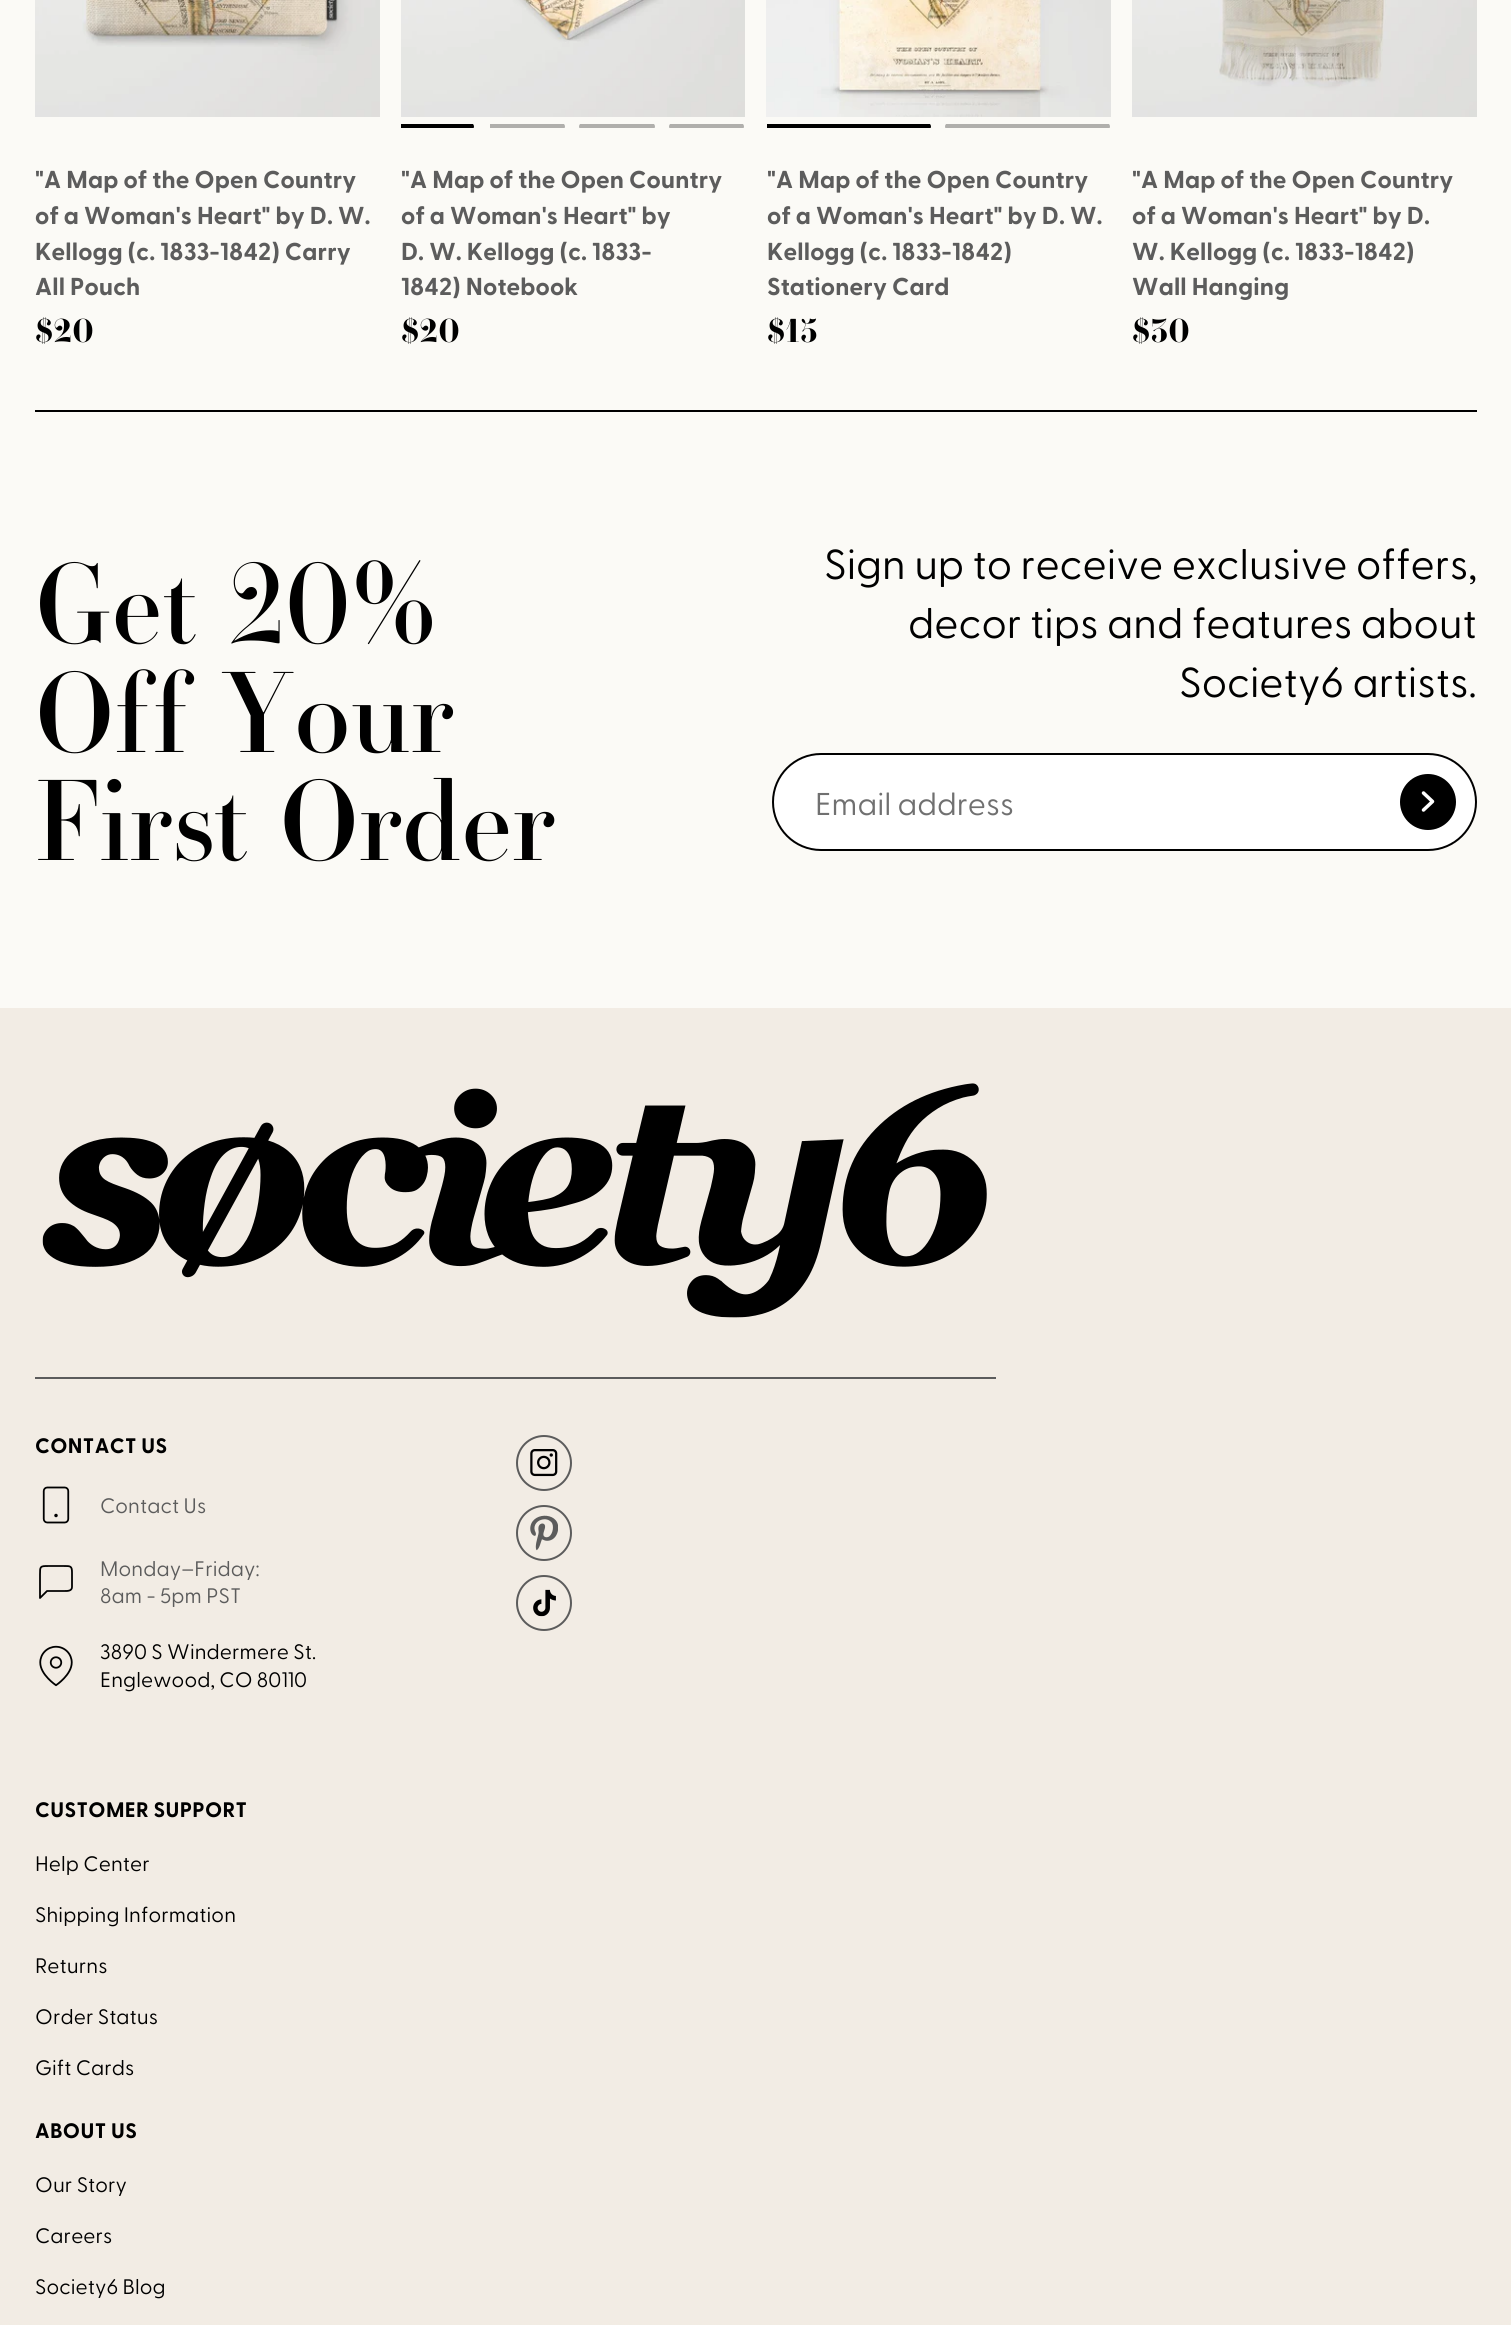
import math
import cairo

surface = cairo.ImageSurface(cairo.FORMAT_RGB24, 1511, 2325)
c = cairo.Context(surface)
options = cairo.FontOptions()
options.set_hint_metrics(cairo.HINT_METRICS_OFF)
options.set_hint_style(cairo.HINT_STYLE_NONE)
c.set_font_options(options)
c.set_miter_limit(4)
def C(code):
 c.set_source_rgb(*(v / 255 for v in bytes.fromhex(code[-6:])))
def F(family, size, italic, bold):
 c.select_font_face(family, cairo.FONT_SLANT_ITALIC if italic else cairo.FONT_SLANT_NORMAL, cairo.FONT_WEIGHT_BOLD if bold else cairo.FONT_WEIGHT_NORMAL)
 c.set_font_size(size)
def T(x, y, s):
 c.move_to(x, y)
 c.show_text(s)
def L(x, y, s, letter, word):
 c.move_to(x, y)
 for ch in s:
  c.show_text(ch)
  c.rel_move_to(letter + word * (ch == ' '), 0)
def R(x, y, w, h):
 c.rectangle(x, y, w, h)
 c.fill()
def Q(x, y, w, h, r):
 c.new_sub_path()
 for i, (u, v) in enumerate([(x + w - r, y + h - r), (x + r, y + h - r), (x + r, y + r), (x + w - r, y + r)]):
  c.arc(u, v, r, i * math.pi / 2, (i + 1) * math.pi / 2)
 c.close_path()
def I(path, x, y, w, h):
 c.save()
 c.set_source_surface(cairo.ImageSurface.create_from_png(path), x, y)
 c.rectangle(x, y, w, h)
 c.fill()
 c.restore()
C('fbfaf6')
c.paint()
I('1.png',35,0,345,117)
F('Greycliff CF',24.5,0,1)
C('5c5c5c')
L(35,188,'"A Map of the Open Country',.15,0)
L(35,224,'of a Woman\'s Heart" by D. W.',.15,0)
L(35,260,'Kellogg (c. 1833-1842) Carry',.15,0)
L(35,295,'All Pouch',.15,0)
F('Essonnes',31.5,0,1)
C('000000')
L(35,342,'$20',.5,0)
I('2.png',401,0,344,117)
c.save()
Q(399,123,75,7,3.5)
c.clip()
R(401,124,73,4)
c.restore()
c.save()
Q(488,123,77,7,3.5)
c.clip()
C('b0afac')
R(490,124,75,4)
c.restore()
c.save()
Q(579,123,76,7,3.5)
c.clip()
C('b0afac')
R(579,124,76,4)
c.restore()
c.save()
Q(669,123,75,7,3.5)
c.clip()
C('b0afac')
R(669,124,75,4)
c.restore()
F('Greycliff CF',24.5,0,1)
C('5c5c5c')
L(401,188,'"A Map of the Open Country',.15,0)
L(401,224,'of a Woman\'s Heart" by',.15,0)
L(401,260,'D. W. Kellogg (c. 1833-',.15,0)
L(401,295,'1842) Notebook',.15,0)
F('Essonnes',31.5,0,1)
C('000000')
L(401,342,'$20',.5,0)
I('3.png',766,0,345,117)
c.save()
Q(765,123,166,7,3.5)
c.clip()
R(767,124,164,4)
c.restore()
c.save()
Q(945,123,165,7,3.5)
c.clip()
C('b0afac')
R(945,124,165,4)
c.restore()
F('Greycliff CF',24.5,0,1)
C('5c5c5c')
L(767,188,'"A Map of the Open Country',.15,0)
L(767,224,'of a Woman\'s Heart" by D. W.',.15,0)
L(767,260,'Kellogg (c. 1833-1842)',.15,0)
L(767,295,'Stationery Card',.15,0)
F('Essonnes',31.5,0,1)
C('000000')
L(767,342,'$15',.5,0)
I('4.png',1132,0,345,117)
F('Greycliff CF',24.5,0,1)
C('5c5c5c')
L(1132,188,'"A Map of the Open Country',.15,0)
L(1132,224,'of a Woman\'s Heart" by D.',.15,0)
L(1132,260,'W. Kellogg (c. 1833-1842)',.15,0)
L(1132,295,'Wall Hanging',.15,0)
F('Essonnes',31.5,0,1)
C('000000')
L(1132,342,'$30',.5,0)
R(35,410,1442,2)
F('Essonnes',109,0,0)
T(35,643,'Get 20%')
T(35,752,'Off Your')
T(35,860,'First Order')
F('Greycliff CF',42,0,0)
T(824,579,'Sign up to receive exclusive offers,')
T(908,638,'decor tips and features about')
T(1179,697,'Society6 artists.')
C('ffffff')
Q(773,754,703,96,48)
c.fill_preserve()
C('000000')
c.stroke()
F('Greycliff CF',31.5,0,0)
C('707070')
T(815,815,'Email address')
C('000000')
c.new_path()
c.arc(1428,802,28,0,2 * math.pi)
c.fill()
c.new_path()
c.move_to(1423.5,793)
c.line_to(1432.5,801.5)
c.line_to(1423.5,810)
C('ffffff')
c.set_line_width(3.5)
c.set_line_cap(cairo.LINE_CAP_ROUND)
c.set_line_join(cairo.LINE_JOIN_ROUND)
c.stroke()
C('f2ece4')
R(0,1008,1511,1317)
C('5c5c5c')
R(35,1377,961,2)
I('5.png',42,1083,945,235)
F('Greycliff CF',21,0,1)
C('000000')
L(35,1453,'CONTACT US',.4,0)
I('6.png',42,1486,28,38)
F('Greycliff CF',21,0,0)
C('5c5c5c')
L(100,1513,'Contact Us',.1,0)
c.new_path()
c.move_to(72,1587)
c.curve_to(72,1591,67.5,1591,65,1591)
c.line_to(47,1591)
c.line_to(40,1598)
c.line_to(40,1574.5)
c.curve_to(40,1566.5,40,1566,48,1566)
c.line_to(64,1566)
c.curve_to(70.5,1566,72,1566,72,1572.5)
c.close_path()
C('000000')
c.set_line_width(1.8)
c.stroke()
C('5c5c5c')
L(100,1576,'Monday–Friday:',.1,0)
L(100,1603,'8am - 5pm PST',.1,0)
I('7.png',39,1645,34,42)
C('000000')
L(100,1659,'3890 S Windermere St.',.1,0)
L(100,1687,'Englewood, CO 80110',.1,0)
c.new_path()
c.arc(544,1463,27,0,2 * math.pi)
C('5c5c5c')
c.set_line_width(2)
c.set_line_cap(cairo.LINE_CAP_BUTT)
c.set_line_join(cairo.LINE_JOIN_MITER)
c.stroke()
I('8.png',530,1449,28,28)
c.arc(544,1533,27,0,2 * math.pi)
c.stroke()
I('9.png',530,1515,28,36)
c.arc(544,1603,27,0,2 * math.pi)
c.stroke()
I('10.png',533,1589,23,28)
F('Greycliff CF',21,0,1)
C('000000')
L(35,1817,'CUSTOMER SUPPORT',.4,0)
F('Greycliff CF',21,0,0)
L(35,1871,'Help Center',.1,0)
L(35,1922,'Shipping Information',.1,0)
L(35,1973,'Returns',.1,0)
L(35,2024,'Order Status',.1,0)
L(35,2075,'Gift Cards',.1,0)
F('Greycliff CF',21,0,1)
L(35,2138,'ABOUT US',.4,0)
F('Greycliff CF',21,0,0)
L(35,2192,'Our Story',.1,0)
L(35,2243,'Careers',.1,0)
L(35,2294,'Society6 Blog',.1,0)
surface.write_to_png('o.png')
